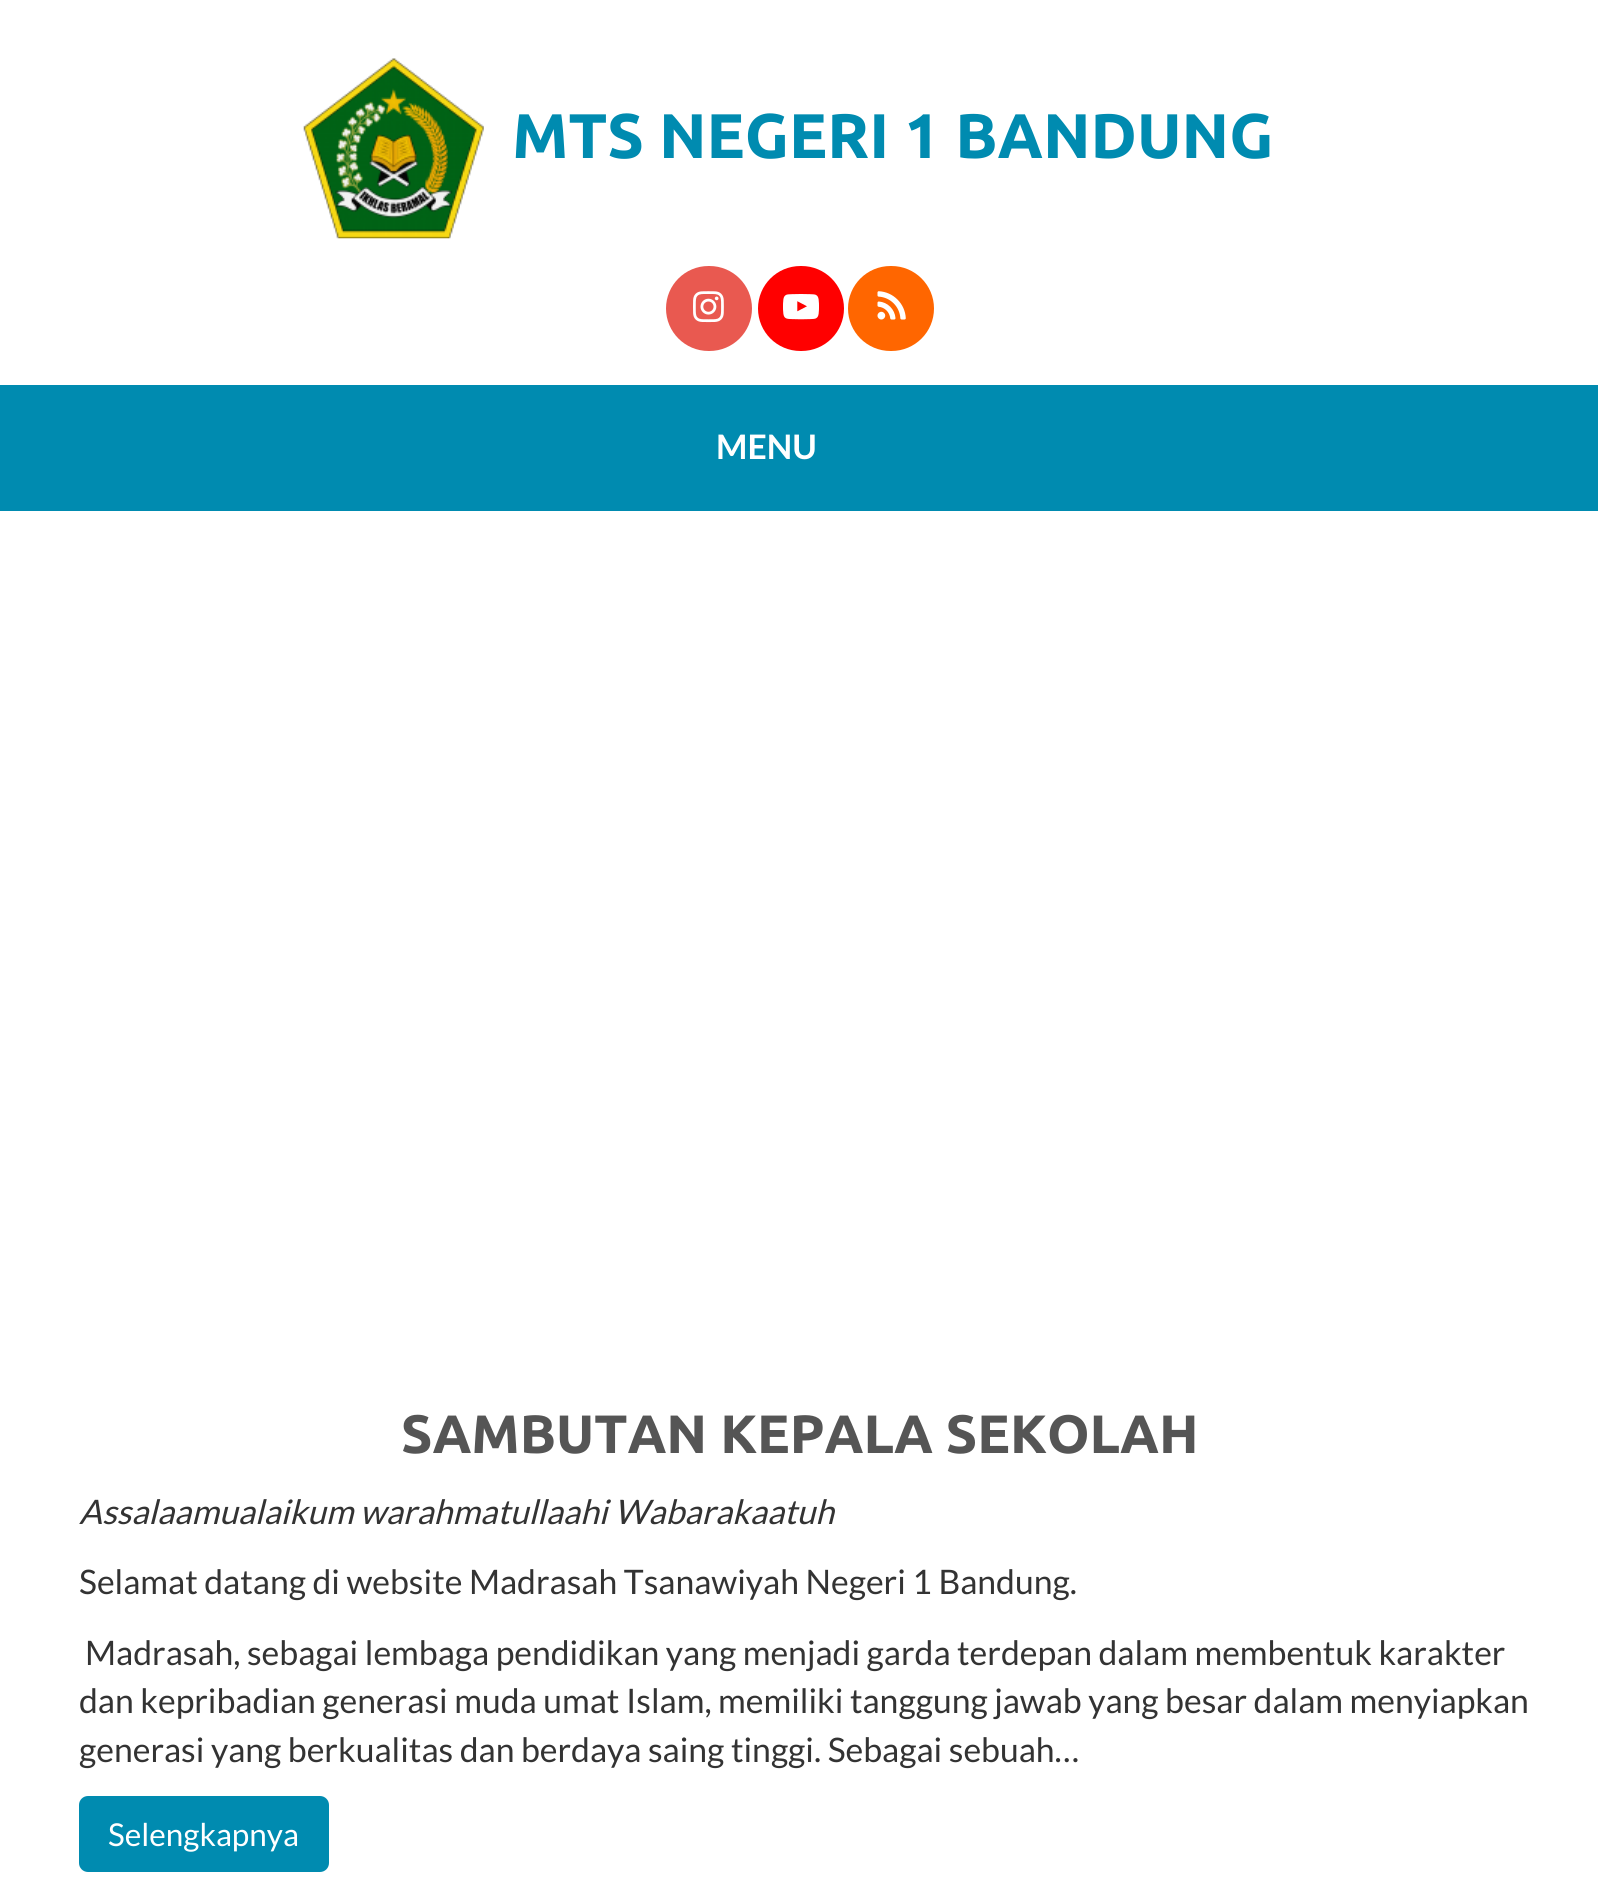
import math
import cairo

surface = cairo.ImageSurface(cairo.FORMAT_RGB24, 1598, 1894)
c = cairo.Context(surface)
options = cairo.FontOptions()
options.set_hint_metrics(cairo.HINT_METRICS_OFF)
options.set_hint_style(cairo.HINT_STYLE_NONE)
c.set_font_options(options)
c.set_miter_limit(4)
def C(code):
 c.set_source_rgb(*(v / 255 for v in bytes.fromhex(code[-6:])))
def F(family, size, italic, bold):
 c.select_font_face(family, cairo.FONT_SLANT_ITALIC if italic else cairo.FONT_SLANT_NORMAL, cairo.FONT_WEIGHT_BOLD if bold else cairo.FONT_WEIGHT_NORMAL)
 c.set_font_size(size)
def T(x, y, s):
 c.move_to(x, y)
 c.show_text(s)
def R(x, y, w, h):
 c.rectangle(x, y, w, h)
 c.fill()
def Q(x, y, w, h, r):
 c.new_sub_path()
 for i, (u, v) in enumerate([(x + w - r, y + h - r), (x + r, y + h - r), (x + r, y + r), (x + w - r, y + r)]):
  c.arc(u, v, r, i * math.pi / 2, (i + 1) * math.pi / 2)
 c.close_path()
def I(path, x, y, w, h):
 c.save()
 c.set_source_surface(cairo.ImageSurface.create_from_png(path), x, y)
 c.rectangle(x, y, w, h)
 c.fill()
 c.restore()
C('ffffff')
c.paint()
I('1.png',303,58,181,181)
F('Ubuntu',63,0,1)
C('008bb0')
T(512,158,'MTS NEGERI 1 BANDUNG')
C('e95950')
Q(666,266,86,85,42.5)
c.fill()
I('2.png',693,291,31,32)
C('ff0000')
Q(758,266,86,85,42.5)
c.fill()
I('3.png',783,294,36,26)
C('ff6600')
Q(848,266,86,85,42.5)
c.fill()
I('4.png',877,291,29,29)
C('008bb0')
R(0,385,1598,126)
F('Lato',33.75,0,1)
C('ffffff')
T(716,459,'MENU')
F('Ubuntu',54,0,1)
C('555555')
T(401,1453,'SAMBUTAN KEPALA SEKOLAH')
F('Lato',33.75,1,0)
C('333333')
T(79,1524,'Assalaamualaikum warahmatullaahi Wabarakaatuh')
F('Lato',33.75,0,0)
T(79,1594,'Selamat datang di website Madrasah Tsanawiyah Negeri 1 Bandung.')
T(85,1665,'Madrasah, sebagai lembaga pendidikan yang menjadi garda terdepan dalam membentuk karakter')
T(79,1713,'dan kepribadian generasi muda umat Islam, memiliki tanggung jawab yang besar dalam menyiapkan')
T(79,1762,'generasi yang berkualitas dan berdaya saing tinggi. Sebagai sebuah…')
C('008bb0')
Q(79,1796,250,76,9)
c.fill()
F('Lato',31.5,0,0)
C('ffffff')
T(108,1846,'Selengkapnya')
surface.write_to_png('o.png')
